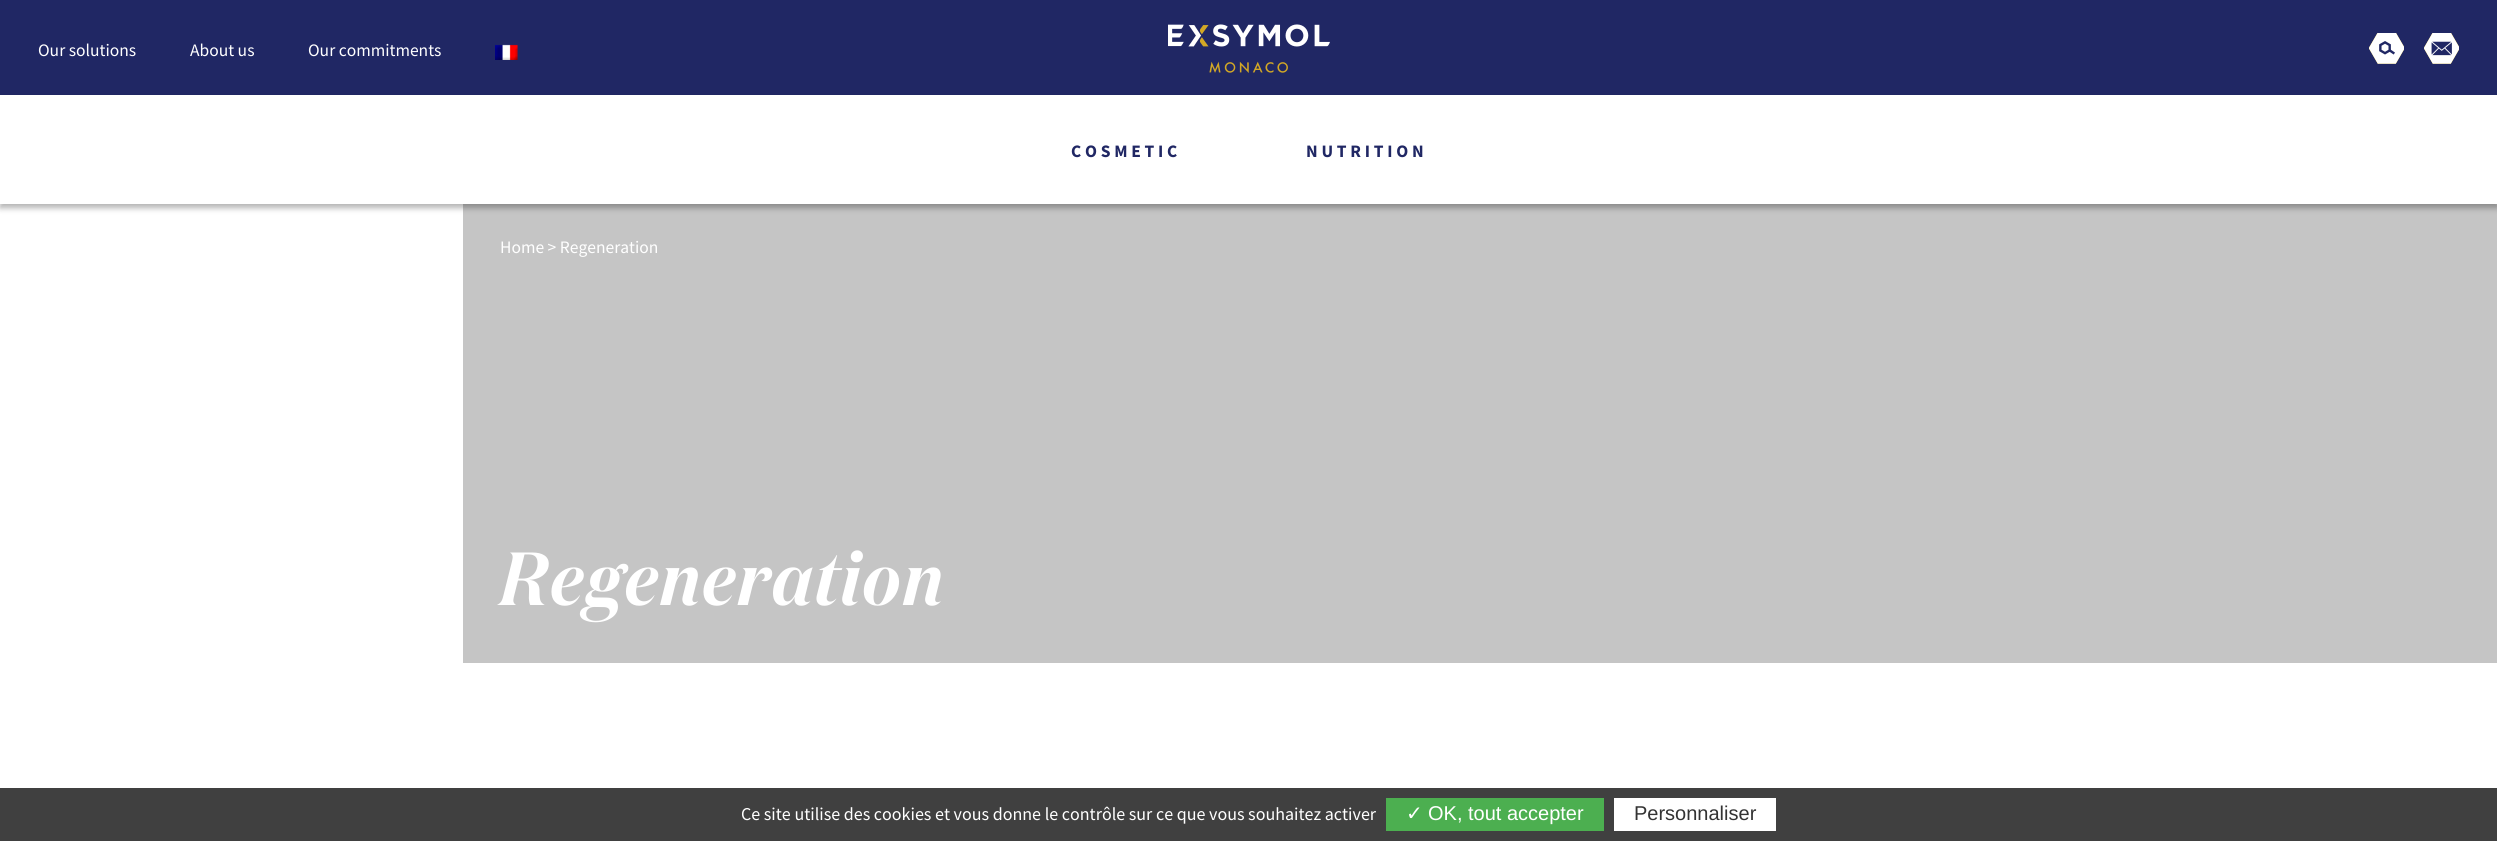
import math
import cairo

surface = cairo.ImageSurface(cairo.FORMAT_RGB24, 2497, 841)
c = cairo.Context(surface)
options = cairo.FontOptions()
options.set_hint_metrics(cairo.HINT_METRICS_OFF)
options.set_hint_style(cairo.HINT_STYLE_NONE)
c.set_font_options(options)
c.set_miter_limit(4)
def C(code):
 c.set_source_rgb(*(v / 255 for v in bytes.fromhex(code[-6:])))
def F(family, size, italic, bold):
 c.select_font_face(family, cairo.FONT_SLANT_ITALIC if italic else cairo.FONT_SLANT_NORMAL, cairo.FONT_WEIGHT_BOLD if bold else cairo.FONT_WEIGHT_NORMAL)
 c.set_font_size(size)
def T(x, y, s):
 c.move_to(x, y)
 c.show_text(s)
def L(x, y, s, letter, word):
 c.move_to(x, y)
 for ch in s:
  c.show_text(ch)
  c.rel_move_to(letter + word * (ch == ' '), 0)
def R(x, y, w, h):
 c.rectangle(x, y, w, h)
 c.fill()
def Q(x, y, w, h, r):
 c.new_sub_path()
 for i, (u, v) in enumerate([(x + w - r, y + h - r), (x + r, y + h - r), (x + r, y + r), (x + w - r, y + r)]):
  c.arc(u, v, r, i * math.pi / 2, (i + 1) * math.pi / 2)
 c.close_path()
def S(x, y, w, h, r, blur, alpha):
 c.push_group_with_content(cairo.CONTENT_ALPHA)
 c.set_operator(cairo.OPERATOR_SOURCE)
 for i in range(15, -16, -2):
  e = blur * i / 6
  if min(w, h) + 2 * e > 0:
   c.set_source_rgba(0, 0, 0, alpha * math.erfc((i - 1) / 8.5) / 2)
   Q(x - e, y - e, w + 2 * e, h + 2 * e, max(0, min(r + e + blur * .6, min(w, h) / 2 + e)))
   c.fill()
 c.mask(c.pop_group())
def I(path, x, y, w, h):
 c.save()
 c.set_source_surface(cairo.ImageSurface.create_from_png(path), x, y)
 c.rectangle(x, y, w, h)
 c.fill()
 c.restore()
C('ffffff')
c.paint()
C('202764')
R(0,0,2497,95)
F('Source Sans Pro',17.5,0,0)
C('ffffff')
T(38,56,'Our solutions')
T(190,56,'About us')
T(308,56,'Our commitments')
I('1.png',495,44,23,16)
I('2.png',1168,24,162,49)
I('3.png',2369,33,35,31)
I('4.png',2369,33,35,31)
I('5.png',2424,33,35,31)
I('6.png',2424,33,35,31)
C('c5c5c5')
R(463,204,2034,459)
C('000000')
S(0,99,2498,109,0,3,.3)
C('ffffff')
R(0,95,2497,109)
F('Source Sans Pro',17.5,0,1)
C('202764')
L(1071,157,'COSMETIC',3.75,0)
L(1306,157,'NUTRITION',3.75,0)
F('Source Sans Pro',17.5,0,0)
C('ffffff')
T(500,253,'Home > Regeneration')
F('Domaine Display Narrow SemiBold',75,1,0)
L(500,605,'Regeneration',2.5,0)
C('404040')
R(0,788,2497,53)
F('Source Sans Pro',18,0,0)
C('ffffff')
T(741,820,'Ce site utilise des cookies et vous donne le contrôle sur ce que vous souhaitez activer')
C('4caf50')
R(1386,798,218,33)
F('DejaVu Sans',20,0,0)
C('ffffff')
T(1406,820,'✓')
F('Liberation Sans',20,0,0)
T(1428,820,'OK, tout accepter')
R(1614,798,162,33)
C('333333')
T(1634,820,'Personnaliser')
surface.write_to_png('o.png')
